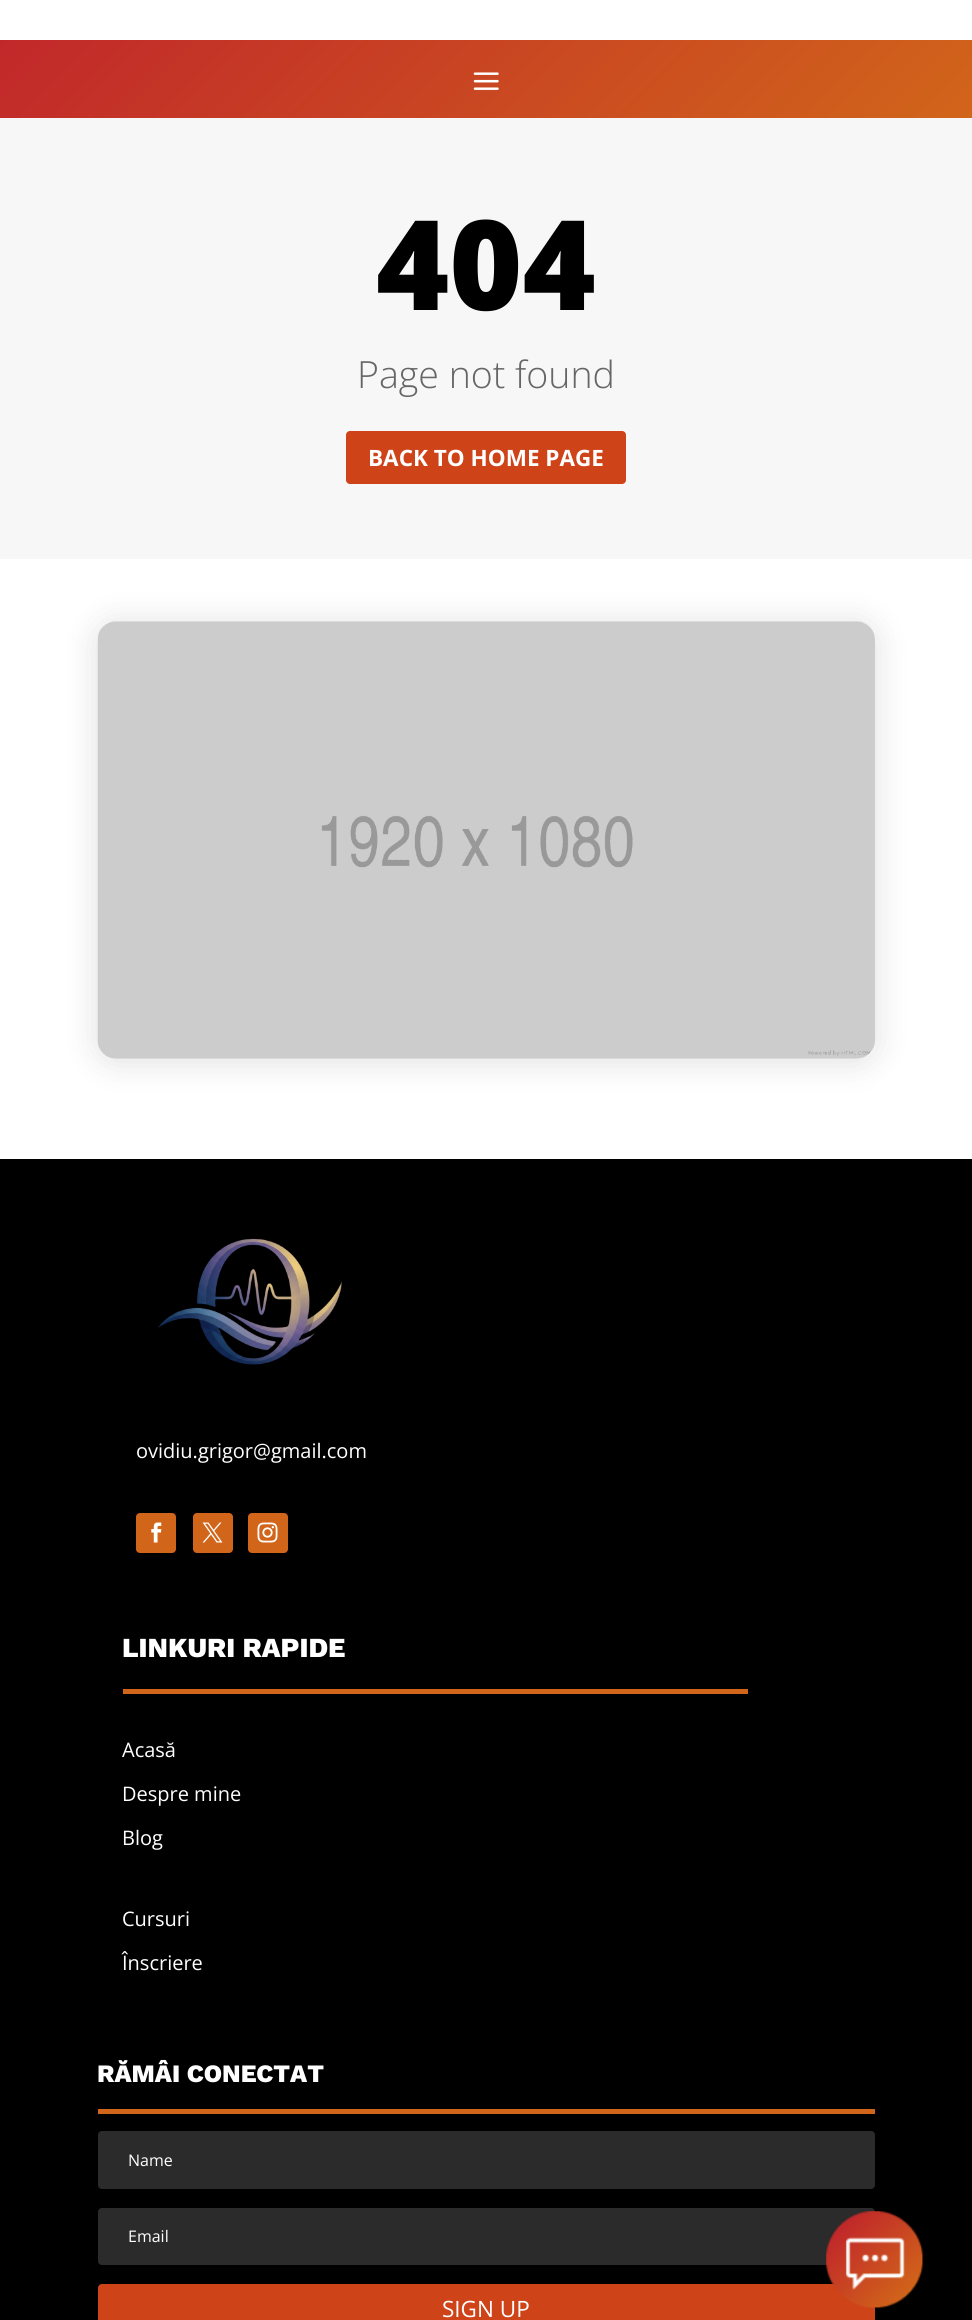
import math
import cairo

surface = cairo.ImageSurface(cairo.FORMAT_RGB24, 972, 2320)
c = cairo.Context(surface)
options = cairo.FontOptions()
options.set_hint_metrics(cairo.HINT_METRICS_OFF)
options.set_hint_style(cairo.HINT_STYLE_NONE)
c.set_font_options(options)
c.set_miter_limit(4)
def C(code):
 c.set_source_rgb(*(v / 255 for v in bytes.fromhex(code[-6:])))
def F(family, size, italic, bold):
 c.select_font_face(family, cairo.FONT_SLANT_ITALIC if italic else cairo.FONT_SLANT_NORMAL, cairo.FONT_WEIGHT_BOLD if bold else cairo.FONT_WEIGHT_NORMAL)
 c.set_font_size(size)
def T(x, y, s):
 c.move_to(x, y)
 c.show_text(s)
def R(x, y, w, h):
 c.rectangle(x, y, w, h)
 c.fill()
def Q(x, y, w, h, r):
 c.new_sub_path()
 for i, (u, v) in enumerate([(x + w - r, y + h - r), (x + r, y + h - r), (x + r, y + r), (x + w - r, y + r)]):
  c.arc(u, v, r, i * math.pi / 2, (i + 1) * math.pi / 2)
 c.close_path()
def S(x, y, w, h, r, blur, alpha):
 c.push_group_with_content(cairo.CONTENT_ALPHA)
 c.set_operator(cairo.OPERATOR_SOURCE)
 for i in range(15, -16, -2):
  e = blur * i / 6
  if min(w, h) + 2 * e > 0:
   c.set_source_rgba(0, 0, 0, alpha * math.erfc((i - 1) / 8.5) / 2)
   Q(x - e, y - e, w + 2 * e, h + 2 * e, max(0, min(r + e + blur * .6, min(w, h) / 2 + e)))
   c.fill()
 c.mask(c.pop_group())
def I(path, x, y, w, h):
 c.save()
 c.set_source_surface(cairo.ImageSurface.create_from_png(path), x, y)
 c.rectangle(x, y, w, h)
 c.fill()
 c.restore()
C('ffffff')
c.paint()
gradient = cairo.LinearGradient(224,-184,749,341)
gradient.add_color_stop_rgba(0,0.757,0.157,0.165,1)
gradient.add_color_stop_rgba(1,0.82,0.396,0.102,1)
c.set_source(gradient)
R(0,40,972,78)
I('1.png',473,72,26,18)
C('f7f7f7')
R(0,118,972,441)
F('Open Sans ExtraBold',125,0,0)
C('000000')
T(376,310,'404')
F('Open Sans Light',37.5,0,0)
C('666666')
T(357,388,'Page not found')
C('ce4318')
Q(346,431,280,53,4)
c.fill()
F('Open Sans',22.5,0,1)
C('ffffff')
T(368,466,'BACK TO HOME PAGE')
C('000000')
S(93,619,787,447,24,15,.1)
I('2.png',97,621,778,438)
C('000000')
R(0,1159,972,1161)
I('3.png',158,1238,184,127)
F('Open Sans',20,0,0)
C('ffffff')
T(136,1458,'ovidiu.grigor@gmail.com')
C('d1651a')
Q(136,1513,40,40,4)
c.fill()
I('4.png',151,1522,11,21)
Q(193,1513,40,40,4)
c.fill()
I('5.png',202,1522,21,21)
Q(248,1513,40,40,4)
c.fill()
I('6.png',257,1522,21,21)
F('Work Sans ExtraBold',27.5,0,0)
C('ffffff')
T(122,1657,'LINKURI RAPIDE')
C('d1651a')
R(123,1689,625,5)
F('Open Sans',20,0,0)
C('ffffff')
T(122,1757,'Acasă')
T(122,1801,'Despre mine')
T(122,1845,'Blog')
T(122,1926,'Cursuri')
T(122,1970,'Înscriere')
F('Work Sans ExtraBold',25,0,0)
T(97,2082,'RĂMÂI CONECTAT')
C('d1651a')
R(98,2109,777,5)
C('2b2b2b')
Q(98,2131,777,58,4)
c.fill()
F('Open Sans',16,0,0)
C('ffffff')
T(128,2166,'Name')
C('2b2b2b')
Q(98,2208,777,57,4)
c.fill()
C('ffffff')
T(128,2242,'Email')
C('ce4318')
Q(98,2284,777,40,4)
c.fill()
F('Open Sans',22.5,0,0)
C('ffffff')
T(442,2317,'SIGN UP')
I('7.png',826,2211,98,98)
surface.write_to_png('o.png')
